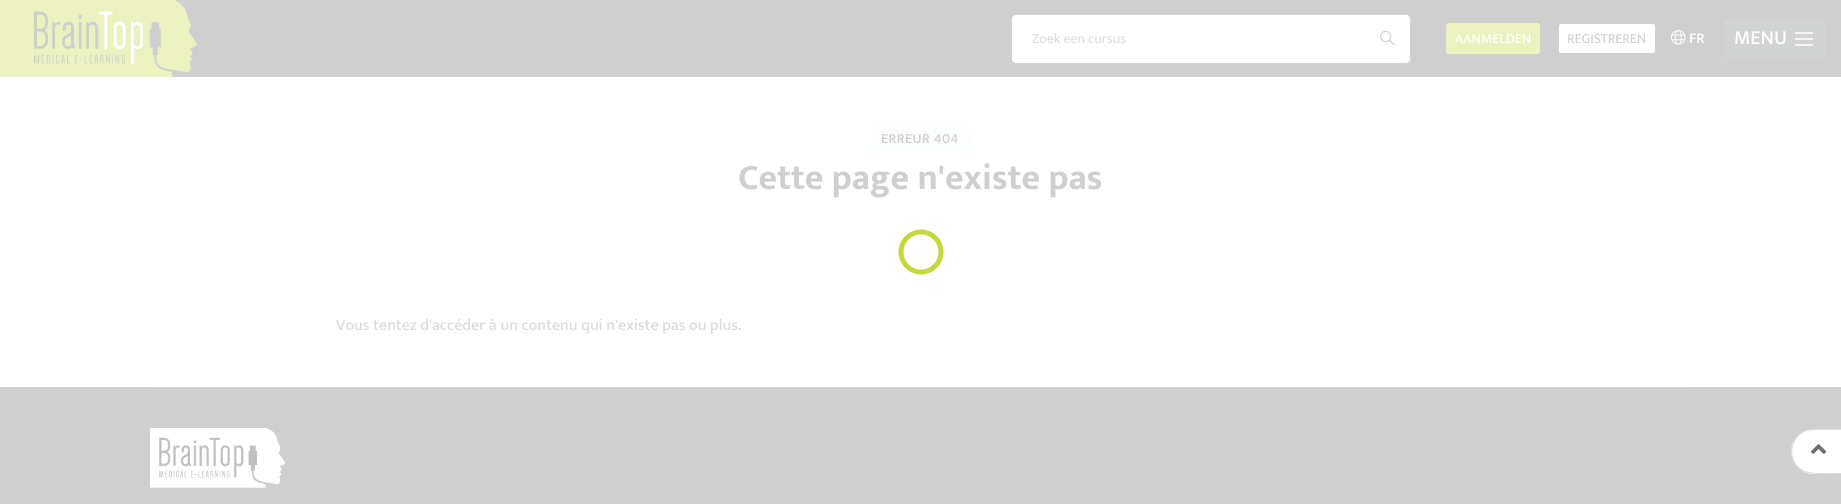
import math
import cairo

surface = cairo.ImageSurface(cairo.FORMAT_RGB24, 1841, 504)
c = cairo.Context(surface)
options = cairo.FontOptions()
options.set_hint_metrics(cairo.HINT_METRICS_OFF)
options.set_hint_style(cairo.HINT_STYLE_NONE)
c.set_font_options(options)
c.set_miter_limit(4)
def C(code):
 c.set_source_rgb(*(v / 255 for v in bytes.fromhex(code[-6:])))
def F(family, size, italic, bold):
 c.select_font_face(family, cairo.FONT_SLANT_ITALIC if italic else cairo.FONT_SLANT_NORMAL, cairo.FONT_WEIGHT_BOLD if bold else cairo.FONT_WEIGHT_NORMAL)
 c.set_font_size(size)
def T(x, y, s):
 c.move_to(x, y)
 c.show_text(s)
def L(x, y, s, letter, word):
 c.move_to(x, y)
 for ch in s:
  c.show_text(ch)
  c.rel_move_to(letter + word * (ch == ' '), 0)
def R(x, y, w, h):
 c.rectangle(x, y, w, h)
 c.fill()
def Q(x, y, w, h, r):
 c.new_sub_path()
 for i, (u, v) in enumerate([(x + w - r, y + h - r), (x + r, y + h - r), (x + r, y + r), (x + w - r, y + r)]):
  c.arc(u, v, r, i * math.pi / 2, (i + 1) * math.pi / 2)
 c.close_path()
def I(path, x, y, w, h):
 c.save()
 c.set_source_surface(cairo.ImageSurface.create_from_png(path), x, y)
 c.rectangle(x, y, w, h)
 c.fill()
 c.restore()
C('ffffff')
c.paint()
I('1.png',0,0,1841,77)
C('cfcfcf')
R(172,0,749,77)
I('2.png',15,0,182,77)
C('ffffff')
Q(1012,15,398,48,4)
c.fill()
Q(1011.5,14.5,399,49,4.5)
c.set_source_rgba(0.875,0.882,0.898,0.2)
c.set_line_width(1)
c.stroke()
F('Mukta',14,0,0)
C('dbdbdb')
T(1032,43,'Zoek een cursus')
I('3.png',1380,30,15,16)
C('ecf2bf')
Q(1446.5,23.5,93,30,2.5)
c.fill_preserve()
c.stroke()
C('ffffff')
T(1455,43,'AANMELDEN')
Q(1558.5,23.5,97,30,2.5)
c.fill_preserve()
C('cfcfcf')
c.stroke()
T(1567,43,'REGISTREREN')
I('4.png',1671,30,15,15)
F('Mukta Medium',15,0,0)
C('ffffff')
T(1689,43,'FR')
C('d2d3d3')
Q(1724,19,102,40,4)
c.fill()
F('Mukta Medium',20,0,0)
C('ffffff')
T(1734,44,'MENU')
I('5.png',1795,32,18,14)
C('fbfefc')
Q(871,126,99,26,5)
c.fill()
F('Mukta Medium',14,0,0)
C('cfcfcf')
L(881,143,'ERREUR 404',.5,0)
F('Mukta',36,0,1)
T(738,189,'Cette page n\'existe pas')
c.new_path()
c.arc(921,252,20,0,2 * math.pi)
C('c5d83e')
c.set_line_width(5)
c.stroke()
F('Mukta Medium',16,0,0)
C('dbdbdb')
T(336,330,'Vous tentez d\'accéder à un contenu qui n\'existe pas ou plus.')
C('cfcfcf')
R(0,387,1841,117)
C('d4d4d4')
R(150,387,1541,1)
I('6.png',150,428,135,60)
C('ffffff')
c.new_path()
c.move_to(1813.5,429)
c.line_to(1841,429)
c.line_to(1841,474)
c.line_to(1813.5,474)
c.curve_to(1801,474,1791,464,1791,451.5)
c.curve_to(1791,439,1801,429,1813.5,429)
c.close_path()
c.fill()
c.set_source_rgba(0.498,0.533,0.592,0.3)
c.set_fill_rule(cairo.FILL_RULE_EVEN_ODD)
c.new_path()
c.move_to(1814,429)
c.line_to(1841,429)
c.line_to(1841,474)
c.curve_to(1832,474,1812,475,1805,472)
c.curve_to(1782,463,1789,429,1814,429)
c.close_path()
c.move_to(1814,430)
c.line_to(1841,430)
c.line_to(1841,473)
c.curve_to(1832,473,1813,474,1805,471)
c.curve_to(1784,462,1790,430,1814,430)
c.close_path()
c.fill()
I('7.png',1811,444,15,10)
surface.write_to_png('o.png')
